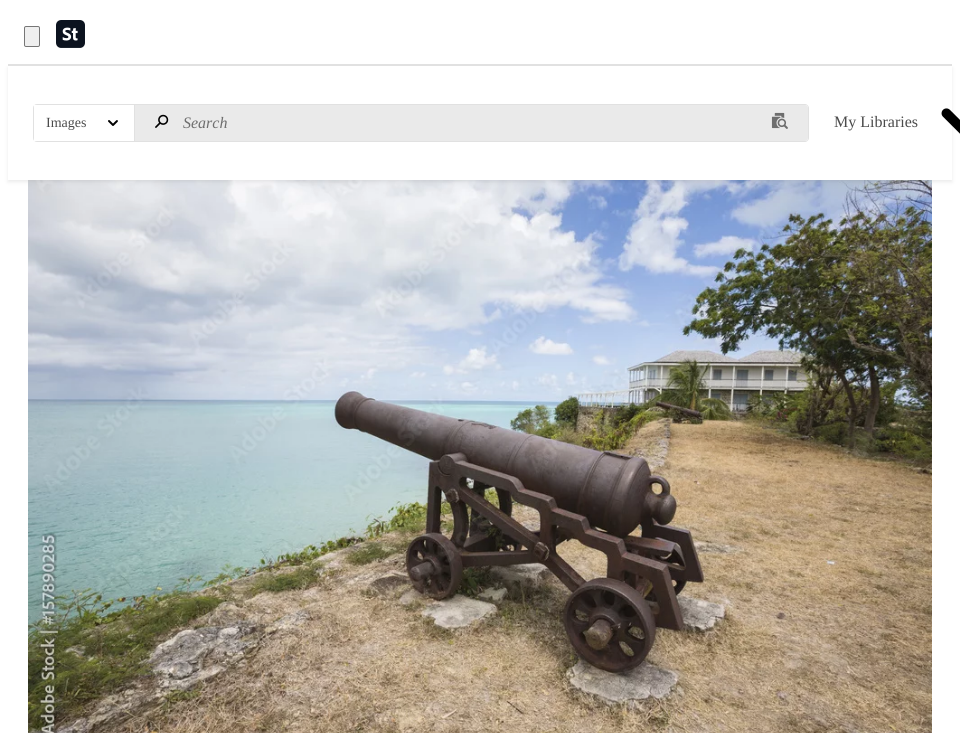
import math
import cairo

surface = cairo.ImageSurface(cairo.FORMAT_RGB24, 960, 733)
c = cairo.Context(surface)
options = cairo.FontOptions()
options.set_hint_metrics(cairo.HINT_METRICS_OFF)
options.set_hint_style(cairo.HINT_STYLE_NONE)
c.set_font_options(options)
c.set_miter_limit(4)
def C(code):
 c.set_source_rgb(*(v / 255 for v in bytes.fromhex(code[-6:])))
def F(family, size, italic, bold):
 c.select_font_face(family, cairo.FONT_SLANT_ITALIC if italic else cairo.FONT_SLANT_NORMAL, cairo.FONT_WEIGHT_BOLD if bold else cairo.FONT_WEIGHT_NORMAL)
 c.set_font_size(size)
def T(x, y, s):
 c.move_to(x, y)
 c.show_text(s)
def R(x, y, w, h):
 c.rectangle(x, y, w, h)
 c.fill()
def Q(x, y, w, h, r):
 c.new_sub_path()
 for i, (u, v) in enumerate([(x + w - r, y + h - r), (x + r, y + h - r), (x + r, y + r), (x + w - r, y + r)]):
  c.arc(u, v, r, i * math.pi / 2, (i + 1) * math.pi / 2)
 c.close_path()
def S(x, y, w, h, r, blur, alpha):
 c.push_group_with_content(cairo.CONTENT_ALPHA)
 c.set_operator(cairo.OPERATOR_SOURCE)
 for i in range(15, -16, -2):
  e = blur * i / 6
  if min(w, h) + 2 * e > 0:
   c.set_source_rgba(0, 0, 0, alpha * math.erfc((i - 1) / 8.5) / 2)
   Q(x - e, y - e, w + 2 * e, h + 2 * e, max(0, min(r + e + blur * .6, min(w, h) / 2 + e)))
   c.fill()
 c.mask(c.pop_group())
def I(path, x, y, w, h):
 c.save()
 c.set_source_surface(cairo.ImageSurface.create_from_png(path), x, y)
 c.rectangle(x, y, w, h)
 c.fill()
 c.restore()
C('ffffff')
c.paint()
I('6.png',28,180,904,553)
C('343434')
S(8,68,944,114,0,2,.1)
C('e1e1e1')
R(8,64,944,2)
C('efefef')
Q(24.5,26.5,15,20,1.5)
c.fill_preserve()
C('767676')
c.set_line_width(1)
c.stroke()
I('1.png',56,20,29,28)
C('ffffff')
R(8,66,944,114)
c.new_path()
c.move_to(37,104.5)
c.line_to(134.5,104.5)
c.line_to(134.5,141.5)
c.line_to(37,141.5)
c.curve_to(35,141.5,33.5,140,33.5,138)
c.line_to(33.5,108)
c.curve_to(33.5,106,35,104.5,37,104.5)
c.close_path()
C('e1e1e1')
c.stroke()
C('ffffff')
R(34,105,3,36)
F('Liberation Serif',14,0,0)
C('4b4b4b')
T(46,127,'Images')
I('2.png',108,120,10,6)
C('eaeaea')
c.new_path()
c.move_to(135,105)
c.line_to(805,105)
c.curve_to(806.5,105,808,106.5,808,108)
c.line_to(808,138)
c.curve_to(808,139.5,806.5,141,805,141)
c.line_to(135,141)
c.close_path()
c.fill()
C('e1e1e1')
c.set_fill_rule(cairo.FILL_RULE_EVEN_ODD)
c.new_path()
c.move_to(135,104)
c.line_to(805,104)
c.curve_to(807,104,809,106,809,108)
c.line_to(809,138)
c.curve_to(809,140,807,142,805,142)
c.line_to(135,142)
c.close_path()
c.move_to(135,105)
c.line_to(805,105)
c.curve_to(807,105,808,106,808,108)
c.line_to(808,138)
c.curve_to(808,140,807,141,805,141)
c.line_to(135,141)
c.close_path()
c.fill()
I('3.png',155,114,14,14)
F('Liberation Serif',16,1,0)
C('6e6e6e')
T(183,128,'Search')
I('4.png',771,112,17,17)
F('Liberation Serif',16,0,0)
C('4b4b4b')
T(834,127,'My Libraries')
I('5.png',941,108,19,26)
surface.write_to_png('o.png')
